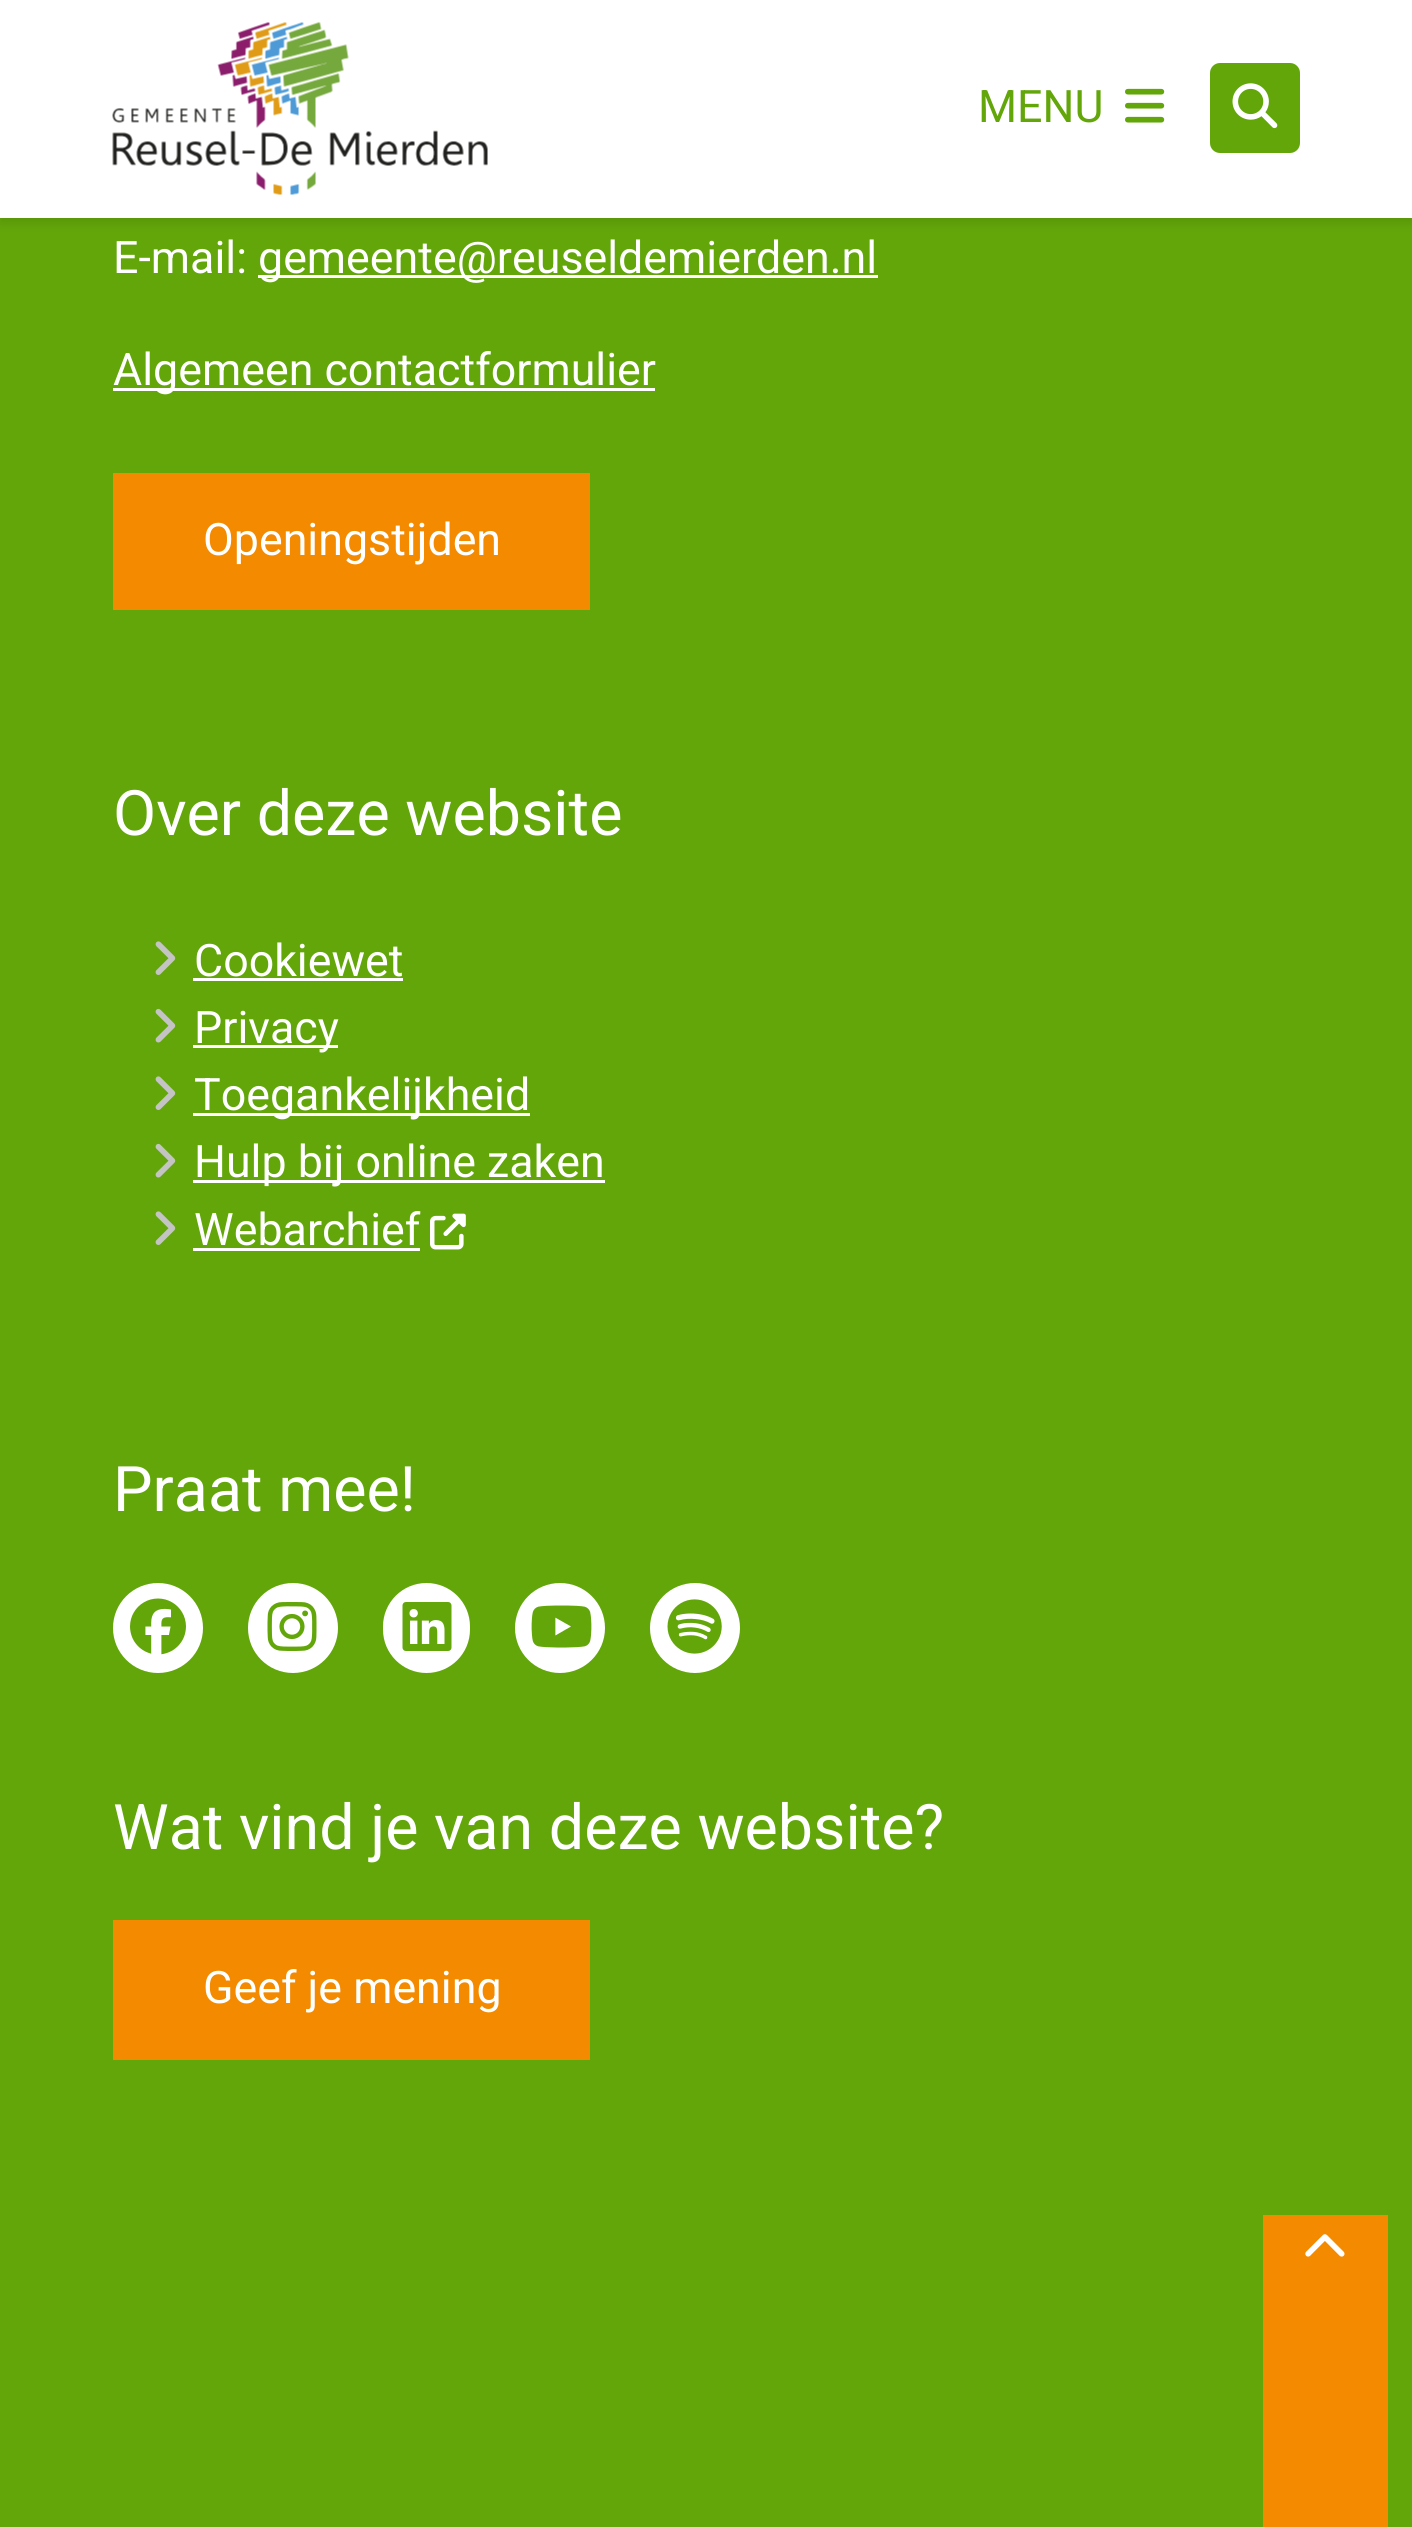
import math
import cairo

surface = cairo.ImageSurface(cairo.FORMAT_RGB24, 1412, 2527)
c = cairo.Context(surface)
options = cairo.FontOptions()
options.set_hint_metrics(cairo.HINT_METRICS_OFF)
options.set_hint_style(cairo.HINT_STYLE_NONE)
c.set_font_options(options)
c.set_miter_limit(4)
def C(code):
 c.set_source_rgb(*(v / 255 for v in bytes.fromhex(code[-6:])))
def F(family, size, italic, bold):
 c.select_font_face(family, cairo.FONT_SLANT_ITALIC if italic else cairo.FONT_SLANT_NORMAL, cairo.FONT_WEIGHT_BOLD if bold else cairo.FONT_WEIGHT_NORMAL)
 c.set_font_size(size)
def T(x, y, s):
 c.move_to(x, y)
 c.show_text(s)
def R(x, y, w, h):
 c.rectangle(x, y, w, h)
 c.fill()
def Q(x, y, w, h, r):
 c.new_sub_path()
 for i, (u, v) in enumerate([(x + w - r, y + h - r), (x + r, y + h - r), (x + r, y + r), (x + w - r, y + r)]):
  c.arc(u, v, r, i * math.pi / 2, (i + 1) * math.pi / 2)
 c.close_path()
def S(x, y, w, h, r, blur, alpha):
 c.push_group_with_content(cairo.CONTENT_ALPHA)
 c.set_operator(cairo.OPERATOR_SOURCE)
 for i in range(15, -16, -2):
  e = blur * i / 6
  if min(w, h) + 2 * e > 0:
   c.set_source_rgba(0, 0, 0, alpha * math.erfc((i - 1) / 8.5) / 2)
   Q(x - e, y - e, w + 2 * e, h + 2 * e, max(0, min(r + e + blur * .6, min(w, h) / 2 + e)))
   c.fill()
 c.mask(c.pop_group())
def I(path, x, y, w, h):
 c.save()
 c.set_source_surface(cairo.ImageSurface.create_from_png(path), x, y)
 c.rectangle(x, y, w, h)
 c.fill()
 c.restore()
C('62a60a')
c.paint()
C('000000')
S(0,5,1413,218,0,5,.1)
C('ffffff')
R(0,0,1412,218)
I('1.png',112,22,376,173)
F('Roboto',44.75,0,0)
C('62a60a')
T(978,122,'MENU')
I('2.png',1125,88,40,35)
Q(1210,63,90,90,10)
c.fill()
I('3.png',1232,83,46,46)
C('ffffff')
T(113,273,'E-mail:')
R(258,275,620,3)
T(258,273,'gemeente@reuseldemierden.nl')
R(113,388,542,3)
T(113,385,'Algemeen contactformulier')
C('f38a00')
R(113,473,477,137)
C('ffffff')
T(203,555,'Openingstijden')
F('Roboto',62.75,0,0)
T(113,835,'Over deze website')
I('4.png',155,941,21,34)
F('Roboto',44.75,0,0)
T(194,976,'Cookiewet')
R(193,978,210,3)
I('5.png',155,1008,21,35)
R(193,1045,145,3)
T(194,1043,'Privacy')
I('4.png',155,1076,21,34)
R(193,1113,337,3)
T(194,1110,'Toegankelijkheid')
I('5.png',155,1143,21,35)
R(193,1180,412,3)
T(194,1177,'Hulp bij online zaken')
I('4.png',155,1211,21,34)
T(194,1245,'Webarchief')
R(193,1248,227,3)
I('6.png',430,1213,36,37)
F('Roboto',62.75,0,0)
T(113,1511,'Praat mee!')
c.new_path()
c.arc(158,1628,45,0,2 * math.pi)
c.fill()
I('7.png',130,1598,56,57)
c.arc(293,1628,45,0,2 * math.pi)
c.fill()
I('8.png',267,1602,50,49)
Q(383,1583,87,90,43.5)
c.fill()
I('9.png',402,1602,50,49)
c.arc(560,1628,45,0,2 * math.pi)
c.fill()
I('10.png',531,1605,61,43)
c.arc(695,1628,45,0,2 * math.pi)
c.fill()
I('11.png',667,1599,55,55)
T(113,1849,'Wat vind je van deze website?')
C('f38a00')
R(113,1920,477,140)
F('Roboto',44.75,0,0)
C('ffffff')
T(203,2003,'Geef je mening')
C('f38a00')
R(1263,2215,125,312)
I('12.png',1305,2234,40,23)
surface.write_to_png('o.png')
